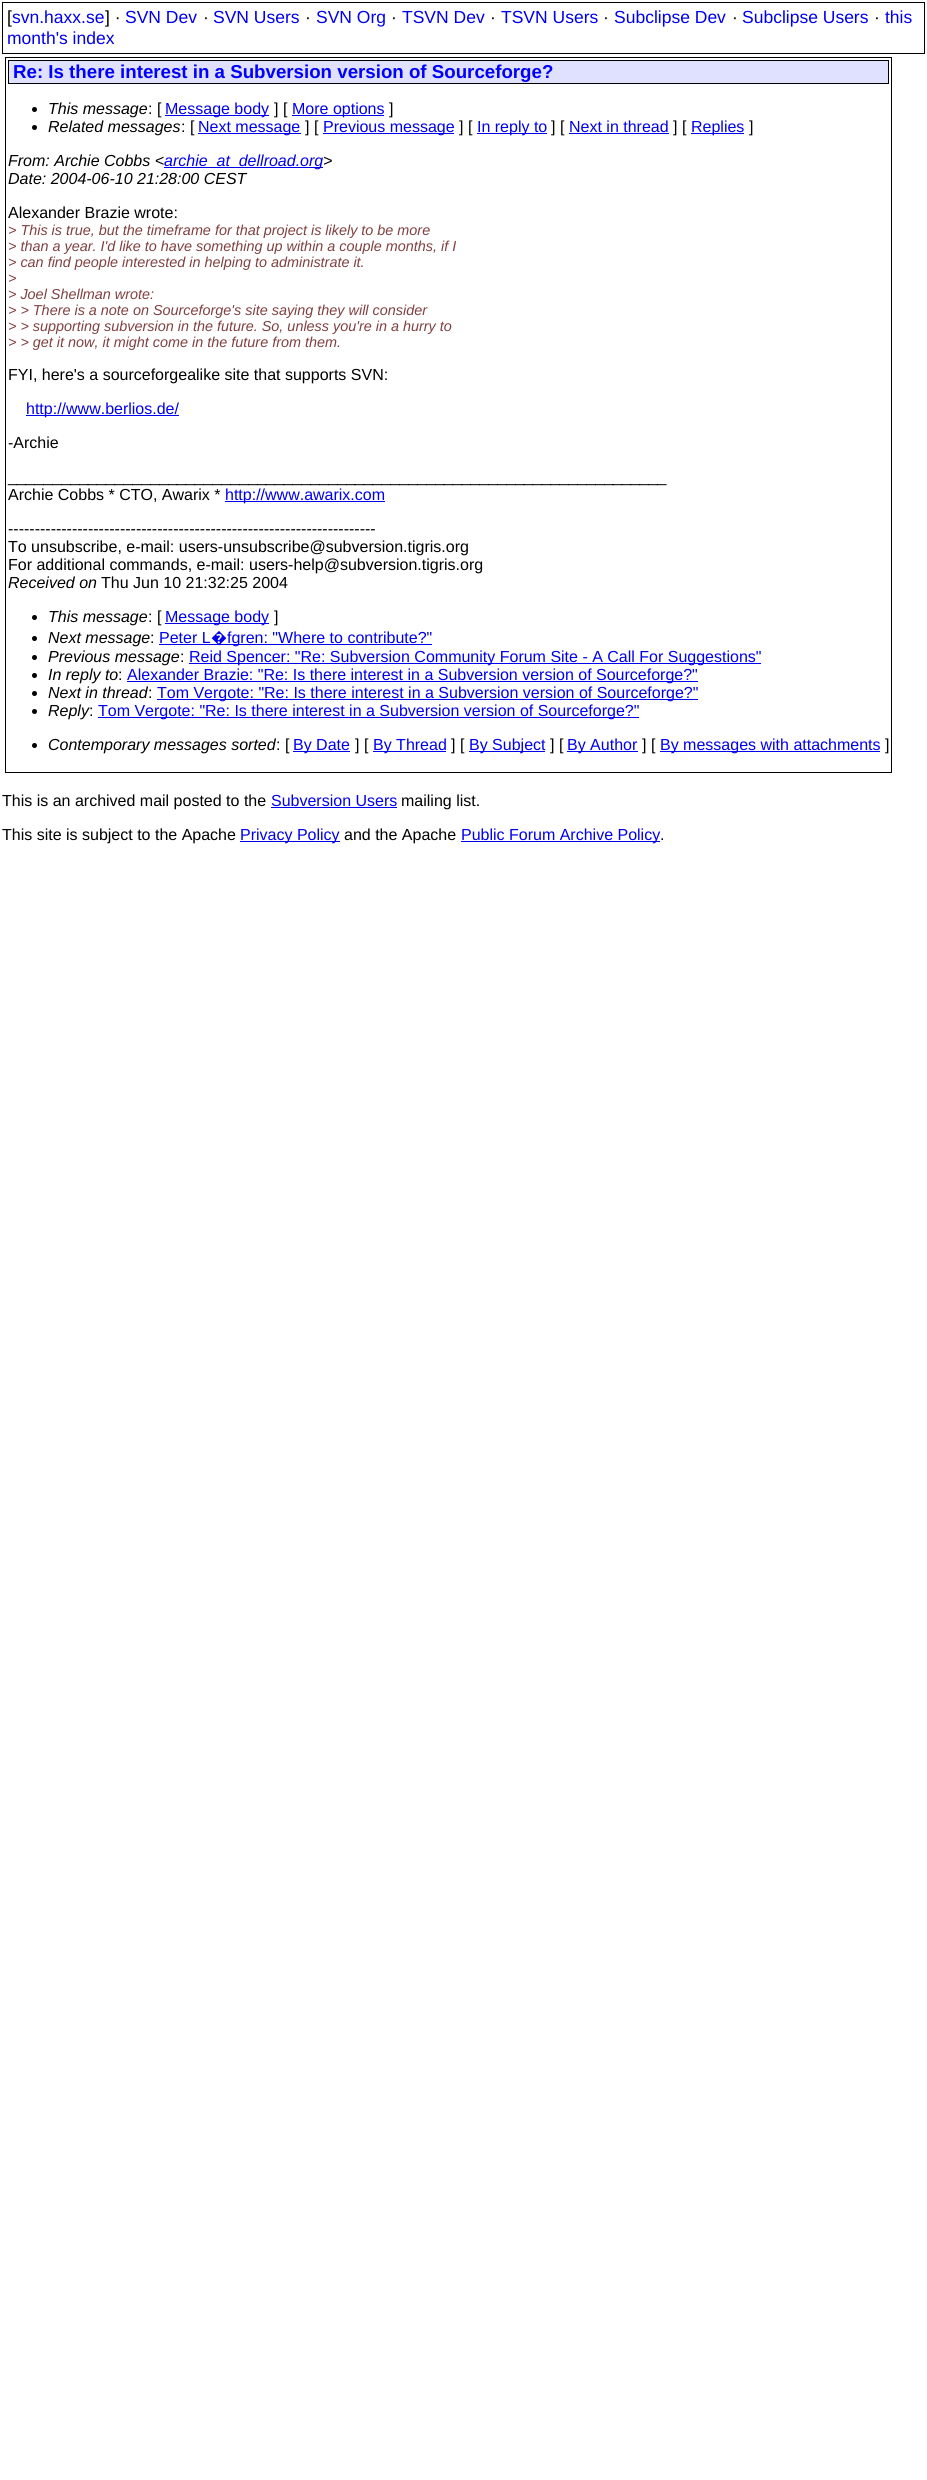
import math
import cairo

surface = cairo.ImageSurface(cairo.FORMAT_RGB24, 927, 2480)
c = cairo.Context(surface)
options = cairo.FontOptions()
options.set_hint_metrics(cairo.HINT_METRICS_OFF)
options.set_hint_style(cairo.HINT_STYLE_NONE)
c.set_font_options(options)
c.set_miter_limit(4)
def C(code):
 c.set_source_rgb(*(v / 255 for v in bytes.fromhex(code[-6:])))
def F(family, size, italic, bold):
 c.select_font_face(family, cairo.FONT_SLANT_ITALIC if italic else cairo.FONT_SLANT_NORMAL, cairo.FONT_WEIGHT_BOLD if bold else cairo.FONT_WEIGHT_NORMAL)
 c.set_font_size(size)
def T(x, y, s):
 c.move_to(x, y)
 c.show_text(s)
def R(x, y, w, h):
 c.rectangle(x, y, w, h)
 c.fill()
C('ffffff')
c.paint()
c.rectangle(2.5,2.5,922,51)
C('000000')
c.set_line_width(1)
c.stroke()
F('Liberation Sans',17.5,0,0)
T(7,23,'[')
C('0000ee')
T(12,23,'svn.haxx.se')
C('000000')
T(105,23,'] ·')
C('0000ee')
T(125,23,'SVN Dev')
C('000000')
T(203,23,'·')
C('0000ee')
T(213,23,'SVN Users')
C('000000')
T(305,23,'·')
C('0000ee')
T(316,23,'SVN Org')
C('000000')
T(391,23,'·')
C('0000ee')
T(402,23,'TSVN Dev')
C('000000')
T(490,23,'·')
C('0000ee')
T(501,23,'TSVN Users')
C('000000')
T(603,23,'·')
C('0000ee')
T(614,23,'Subclipse Dev')
C('000000')
T(732,23,'·')
C('0000ee')
T(742,23,'Subclipse Users')
C('000000')
T(874,23,'·')
C('0000ee')
T(885,23,'this')
T(7,44,'month\'s index')
c.rectangle(5.5,57.5,886,715)
C('000000')
c.stroke()
C('e0e0ff')
c.rectangle(8.5,60.5,880,23)
c.fill_preserve()
C('000000')
c.stroke()
F('Liberation Sans',18.7,0,1)
C('0000ff')
T(13,78,'Re: Is there interest in a Subversion version of Sourceforge?')
C('000000')
c.new_path()
c.arc(34.5,109.5,2.5,0,2 * math.pi)
c.fill()
F('Liberation Sans',16,1,0)
T(48,114,'This message')
F('Liberation Sans',16,0,0)
T(148,114,': [')
C('0000ee')
R(165,115,104,1)
T(165,114,'Message body')
C('000000')
T(274,114,'] [')
C('0000ee')
R(292,115,92,1)
T(292,114,'More options')
C('000000')
T(389,114,']')
c.new_path()
c.arc(34.5,127.5,2.5,0,2 * math.pi)
c.fill()
F('Liberation Sans',16,1,0)
T(48,132,'Related messages')
F('Liberation Sans',16,0,0)
T(181,132,': [')
C('0000ee')
R(198,133,103,1)
T(198,132,'Next message')
C('000000')
T(305,132,'] [')
C('0000ee')
R(323,133,131,1)
T(323,132,'Previous message')
C('000000')
T(459,132,'] [')
C('0000ee')
R(477,133,70,1)
T(477,132,'In reply to')
C('000000')
T(551,132,'] [')
C('0000ee')
T(569,132,'Next in thread')
R(569,133,100,1)
C('000000')
T(673,132,'] [')
C('0000ee')
R(691,133,53,1)
T(691,132,'Replies')
C('000000')
T(749,132,']')
F('Liberation Sans',16,1,0)
T(8,166,'From: Archie Cobbs <')
C('0000ee')
R(164,167,159,1)
T(164,166,'archie_at_dellroad.org')
C('000000')
T(323,166,'>')
T(8,184,'Date: 2004-06-10 21:28:00 CEST')
F('Liberation Sans',16,0,0)
T(8,218,'Alexander Brazie wrote:')
F('Liberation Sans',14.4,1,0)
C('804040')
T(8,235,'> This is true, but the timeframe for that project is likely to be more')
T(8,251,'> than a year. I\'d like to have something up within a couple months, if I')
T(8,267,'> can find people interested in helping to administrate it.')
T(8,283,'>')
T(8,299,'> Joel Shellman wrote:')
T(8,315,'> > There is a note on Sourceforge\'s site saying they will consider')
T(8,331,'> > supporting subversion in the future. So, unless you\'re in a hurry to')
T(8,347,'> > get it now, it might come in the future from them.')
F('Liberation Sans',16,0,0)
C('000000')
T(8,380,'FYI, here\'s a sourceforgealike site that supports SVN:')
C('0000ee')
R(26,415,153,1)
T(26,414,'http://www.berlios.de/')
C('000000')
T(8,448,'-Archie')
T(8,482,'__________________________________________________________________________')
T(8,500,'Archie Cobbs * CTO, Awarix *')
C('0000ee')
R(225,501,160,1)
T(225,500,'http://www.awarix.com')
C('000000')
T(8,534,'---------------------------------------------------------------------')
T(8,552,'To unsubscribe, e-mail: users-unsubscribe@subversion.tigris.org')
T(8,570,'For additional commands, e-mail: users-help@subversion.tigris.org')
F('Liberation Sans',16,1,0)
T(8,588,'Received on')
F('Liberation Sans',16,0,0)
T(101,588,'Thu Jun 10 21:32:25 2004')
c.new_path()
c.arc(34.5,617.5,2.5,0,2 * math.pi)
c.fill()
F('Liberation Sans',16,1,0)
T(48,622,'This message')
F('Liberation Sans',16,0,0)
T(148,622,': [')
C('0000ee')
R(165,623,104,1)
T(165,622,'Message body')
C('000000')
T(274,622,']')
c.new_path()
c.arc(34.5,638.5,2.5,0,2 * math.pi)
c.fill()
F('Liberation Sans',16,1,0)
T(48,643,'Next message')
F('Liberation Sans',16,0,0)
T(150,643,':')
C('0000ee')
T(159,643,'Peter L')
R(159,644,273,1)
F('Noto Sans',16,0,0)
T(211,643,'�')
F('Liberation Sans',16,0,0)
T(227,643,'fgren: "Where to contribute?"')
C('000000')
c.new_path()
c.arc(34.5,657.5,2.5,0,2 * math.pi)
c.fill()
F('Liberation Sans',16,1,0)
T(48,662,'Previous message')
F('Liberation Sans',16,0,0)
T(180,662,':')
C('0000ee')
R(189,663,572,1)
T(189,662,'Reid Spencer: "Re: Subversion Community Forum Site - A Call For Suggestions"')
C('000000')
c.new_path()
c.arc(34.5,675.5,2.5,0,2 * math.pi)
c.fill()
F('Liberation Sans',16,1,0)
T(48,680,'In reply to')
F('Liberation Sans',16,0,0)
T(118,680,':')
C('0000ee')
R(127,681,571,1)
T(127,680,'Alexander Brazie: "Re: Is there interest in a Subversion version of Sourceforge?"')
C('000000')
c.new_path()
c.arc(34.5,693.5,2.5,0,2 * math.pi)
c.fill()
F('Liberation Sans',16,1,0)
T(48,698,'Next in thread')
F('Liberation Sans',16,0,0)
T(148,698,':')
C('0000ee')
R(157,699,541,1)
T(157,698,'Tom Vergote: "Re: Is there interest in a Subversion version of Sourceforge?"')
C('000000')
c.new_path()
c.arc(34.5,711.5,2.5,0,2 * math.pi)
c.fill()
F('Liberation Sans',16,1,0)
T(48,716,'Reply')
F('Liberation Sans',16,0,0)
T(89,716,':')
C('0000ee')
R(98,717,541,1)
T(98,716,'Tom Vergote: "Re: Is there interest in a Subversion version of Sourceforge?"')
C('000000')
c.new_path()
c.arc(34.5,745.5,2.5,0,2 * math.pi)
c.fill()
F('Liberation Sans',16,1,0)
T(48,750,'Contemporary messages sorted')
F('Liberation Sans',16,0,0)
T(276,750,': [')
C('0000ee')
R(293,751,57,1)
T(293,750,'By Date')
C('000000')
T(355,750,'] [')
C('0000ee')
R(373,751,73,1)
T(373,750,'By Thread')
C('000000')
T(451,750,'] [')
C('0000ee')
R(469,751,76,1)
T(469,750,'By Subject')
C('000000')
T(550,750,'] [')
C('0000ee')
R(567,751,71,1)
T(567,750,'By Author')
C('000000')
T(642,750,'] [')
C('0000ee')
R(660,751,220,1)
T(660,750,'By messages with attachments')
C('000000')
T(885,750,']')
T(2,806,'This is an archived mail posted to the')
C('0000ee')
T(271,806,'Subversion Users')
R(271,807,126,1)
C('000000')
T(401,806,'mailing list.')
T(2,840,'This site is subject to the Apache')
C('0000ee')
R(240,841,100,1)
T(240,840,'Privacy Policy')
C('000000')
T(344,840,'and the Apache')
C('0000ee')
R(461,841,199,1)
T(461,840,'Public Forum Archive Policy')
C('000000')
T(660,840,'.')
surface.write_to_png('o.png')
